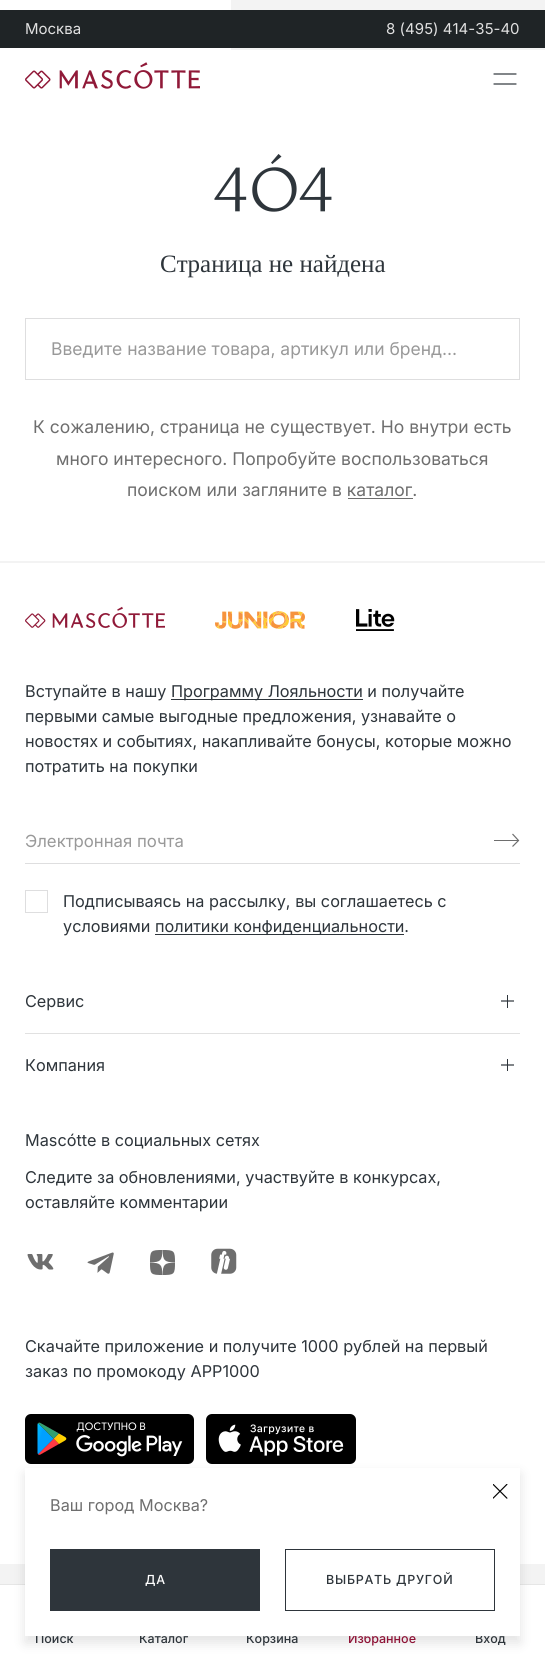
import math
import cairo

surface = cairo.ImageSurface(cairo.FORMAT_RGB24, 545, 1654)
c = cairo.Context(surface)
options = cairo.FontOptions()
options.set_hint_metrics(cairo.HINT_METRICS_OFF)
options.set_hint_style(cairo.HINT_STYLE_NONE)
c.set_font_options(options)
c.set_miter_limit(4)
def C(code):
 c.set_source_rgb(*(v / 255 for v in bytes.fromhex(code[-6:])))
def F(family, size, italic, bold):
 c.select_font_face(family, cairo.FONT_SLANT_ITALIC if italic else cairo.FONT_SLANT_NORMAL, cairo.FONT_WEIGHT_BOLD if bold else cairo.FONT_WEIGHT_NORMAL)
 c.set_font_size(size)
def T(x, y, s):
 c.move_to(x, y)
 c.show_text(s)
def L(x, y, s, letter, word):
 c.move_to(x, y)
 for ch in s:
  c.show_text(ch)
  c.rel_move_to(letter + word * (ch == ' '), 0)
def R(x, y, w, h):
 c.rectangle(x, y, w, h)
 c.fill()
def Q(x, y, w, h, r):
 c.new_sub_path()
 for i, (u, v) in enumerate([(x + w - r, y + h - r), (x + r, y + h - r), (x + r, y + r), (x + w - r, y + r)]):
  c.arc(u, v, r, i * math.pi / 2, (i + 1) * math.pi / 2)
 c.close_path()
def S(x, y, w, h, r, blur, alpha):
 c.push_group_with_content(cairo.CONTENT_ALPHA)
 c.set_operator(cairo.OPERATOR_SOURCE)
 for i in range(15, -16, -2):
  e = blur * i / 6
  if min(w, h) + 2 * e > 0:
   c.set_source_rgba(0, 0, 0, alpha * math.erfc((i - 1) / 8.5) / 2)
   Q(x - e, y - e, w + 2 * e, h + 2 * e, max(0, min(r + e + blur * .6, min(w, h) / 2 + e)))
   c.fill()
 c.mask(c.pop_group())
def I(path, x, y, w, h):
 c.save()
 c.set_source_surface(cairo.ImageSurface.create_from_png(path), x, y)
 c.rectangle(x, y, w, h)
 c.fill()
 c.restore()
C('ffffff')
c.paint()
C('f3f3f3')
R(231,0,314,50)
C('1f2426')
R(0,10,545,38)
F('Inter',15,0,0)
C('e1e1e1')
T(25,34,'Москва')
T(386,34,'8 (495) 414-35-40')
I('1.png',25,62,175,27)
c.new_path()
c.move_to(494,74)
c.line_to(516,74)
c.move_to(494,84)
c.line_to(516,84)
C('2e353b')
c.set_line_width(1.2)
c.set_line_cap(cairo.LINE_CAP_ROUND)
c.set_line_join(cairo.LINE_JOIN_ROUND)
c.stroke()
C('f3f3f3')
R(0,561,545,2)
I('2.png',214,154,118,58)
F('Liberation Serif',25,0,0)
C('2e353b')
T(160,272,'Страница не найдена')
c.rectangle(25.5,318.5,494,61)
C('dededf')
c.set_line_width(1)
c.set_line_cap(cairo.LINE_CAP_BUTT)
c.set_line_join(cairo.LINE_JOIN_MITER)
c.stroke()
F('Inter',17.5,0,0)
C('999999')
T(51,355,'Введите название товара, артикул или бренд...')
C('6e6e6e')
T(33,433,'К сожалению, страница не существует. Но внутри есть')
T(56,465,'много интересного. Попробуйте воспользоваться')
T(127,496,'поиском или загляните в каталог.')
R(348,498,65,1)
I('3.png',25,606,140,22)
I('4.png',215,611,90,18)
I('5.png',356,609,39,22)
F('Inter',16.25,0,0)
C('2e353b')
T(25,697,'Вступайте в нашу')
R(171,699,192,1)
T(171,697,'Программу Лояльности и получайте')
T(25,722,'первыми самые выгодные предложения, узнавайте о')
T(25,747,'новостях и событиях, накапливайте бонусы, которые можно')
T(25,772,'потратить на покупки')
C('dededf')
R(25,863,495,1)
F('Inter',16.75,0,0)
C('999999')
T(25,847,'Электронная почта')
C('6e6e6e')
R(494,840,25,1)
c.new_path()
c.move_to(512.5,834)
c.line_to(518.5,840.5)
c.line_to(512.5,846.5)
c.set_line_width(1.2)
c.stroke()
c.rectangle(25.5,890.5,22,22)
C('dededf')
c.set_line_width(1)
c.stroke()
F('Inter',16.25,0,0)
C('2e353b')
T(63,907,'Подписываясь на рассылку, вы соглашаетесь с')
T(63,932,'условиями')
R(155,934,249,1)
T(155,932,'политики конфиденциальности.')
T(25,1007,'Сервис')
R(507,995,1,13)
c.new_path()
c.move_to(514,1001)
c.line_to(501,1001)
c.set_line_width(1.2)
c.stroke()
C('e1e1e1')
R(25,1033,495,1)
C('2e353b')
T(25,1071,'Компания')
R(507,1059,1,12)
c.new_path()
c.move_to(514,1065)
c.line_to(501,1065)
c.stroke()
T(25,1146,'Mascótte в социальных сетях')
T(25,1183,'Следите за обновлениями, участвуйте в конкурсах,')
T(25,1208,'оставляйте комментарии')
I('6.png',27,1254,27,16)
I('7.png',87,1252,27,22)
I('8.png',150,1250,25,25)
I('9.png',211,1248,26,26)
T(25,1352,'Скачайте приложение и получите 1000 рублей на первый')
T(25,1377,'заказ по промокоду APP1000')
I('10.png',25,1414,169,50)
I('11.png',206,1414,150,50)
C('f3f3f3')
R(0,1564,545,20)
C('e6e6e6')
R(0,1584,545,1)
C('000000')
S(25,1474,495,169,0,6,.11)
F('Inter Medium',12.5,0,0)
C('2e353b')
T(35,1643,'Поиск')
T(139,1643,'Каталог')
T(246,1643,'Корзина')
C('8f1437')
T(348,1643,'Избранное')
C('2e353b')
T(475,1643,'Вход')
C('ffffff')
R(25,1468,495,168)
I('12.png',493,1484,15,15)
F('Inter',16.25,0,0)
C('6e6e6e')
T(50,1511,'Ваш город Москва?')
C('2e353b')
R(50,1549,210,62)
F('Inter Medium',12.5,0,0)
C('ffffff')
L(145,1584,'ДА',.75,0)
c.rectangle(285.5,1549.5,209,61)
C('2e353b')
c.set_line_width(1)
c.stroke()
L(326,1584,'ВЫБРАТЬ ДРУГОЙ',.75,0)
surface.write_to_png('o.png')
